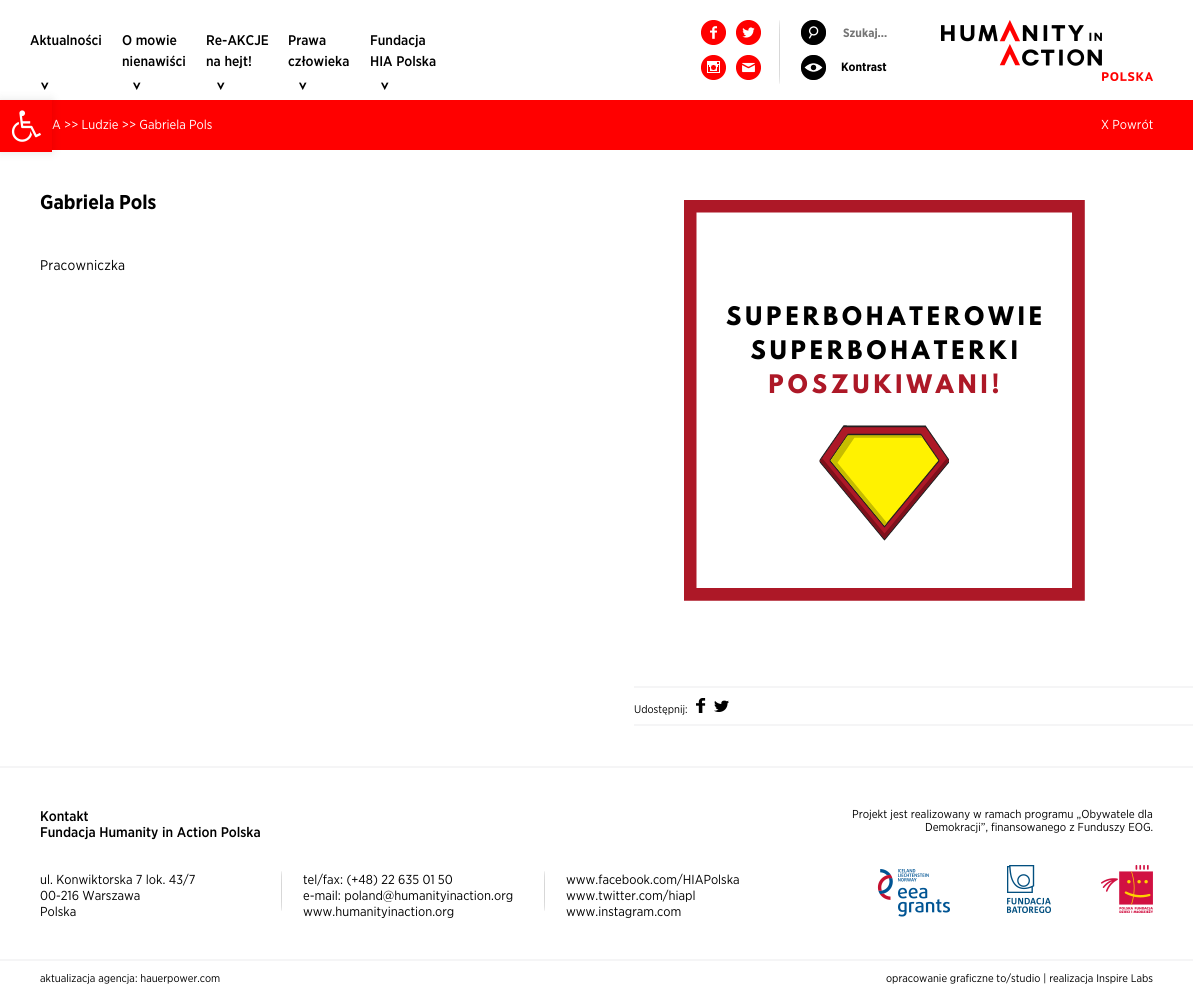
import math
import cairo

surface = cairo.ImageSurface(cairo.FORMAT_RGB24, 1193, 997)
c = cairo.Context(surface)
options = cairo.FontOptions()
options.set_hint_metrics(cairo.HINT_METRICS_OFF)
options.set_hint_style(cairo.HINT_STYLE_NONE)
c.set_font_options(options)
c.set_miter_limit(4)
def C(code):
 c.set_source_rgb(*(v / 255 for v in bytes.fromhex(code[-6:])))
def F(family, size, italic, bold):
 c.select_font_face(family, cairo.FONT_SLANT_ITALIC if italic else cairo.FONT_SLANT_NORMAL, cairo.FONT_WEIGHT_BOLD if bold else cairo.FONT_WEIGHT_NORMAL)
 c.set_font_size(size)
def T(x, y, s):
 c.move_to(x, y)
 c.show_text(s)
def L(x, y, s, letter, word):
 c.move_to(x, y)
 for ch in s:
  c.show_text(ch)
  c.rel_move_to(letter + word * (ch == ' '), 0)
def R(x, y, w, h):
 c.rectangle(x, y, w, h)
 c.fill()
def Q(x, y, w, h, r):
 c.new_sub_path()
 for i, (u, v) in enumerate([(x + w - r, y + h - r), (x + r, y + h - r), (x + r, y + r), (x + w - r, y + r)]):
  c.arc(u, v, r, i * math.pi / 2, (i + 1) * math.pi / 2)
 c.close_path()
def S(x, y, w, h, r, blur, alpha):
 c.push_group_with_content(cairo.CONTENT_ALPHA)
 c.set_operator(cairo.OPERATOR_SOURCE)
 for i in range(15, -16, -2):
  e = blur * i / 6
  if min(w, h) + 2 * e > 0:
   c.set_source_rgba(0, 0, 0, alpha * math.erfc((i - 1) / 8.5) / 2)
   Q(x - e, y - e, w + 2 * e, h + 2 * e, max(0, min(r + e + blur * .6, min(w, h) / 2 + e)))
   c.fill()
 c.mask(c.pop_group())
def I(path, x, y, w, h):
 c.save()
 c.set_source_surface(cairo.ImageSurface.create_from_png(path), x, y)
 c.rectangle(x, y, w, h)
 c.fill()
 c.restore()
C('ffffff')
c.paint()
F('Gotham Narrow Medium',14,0,0)
C('000000')
T(30,45,'Aktualności')
I('1.png',41,82,8,8)
T(122,45,'O mowie')
T(122,66,'nienawiści')
I('1.png',133,82,8,8)
T(206,45,'Re-AKCJE')
T(206,66,'na hejt!')
I('1.png',217,82,8,8)
T(288,45,'Prawa')
T(288,66,'człowieka')
I('1.png',299,82,8,8)
T(370,45,'Fundacja')
T(370,66,'HIA Polska')
I('1.png',381,82,8,8)
I('2.png',779,20,1,64)
I('3.png',701,20,25,25)
I('4.png',736,20,25,25)
I('5.png',701,55,25,25)
I('6.png',736,55,25,25)
I('7.png',801,20,25,25)
F('Gotham Narrow',12,0,1)
C('757575')
T(843,37,'Szukaj...')
I('8.png',801,55,25,25)
C('000000')
T(841,71,'Kontrast')
I('9.png',941,20,212,61)
C('ff0000')
R(52,100,1141,50)
F('Gotham Narrow',13,0,0)
C('ffffff')
T(52,129,'A >> Ludzie >> Gabriela Pols')
T(1101,129,'X Powrót')
F('Gotham Narrow',20,0,1)
C('000000')
T(40,209,'Gabriela Pols')
F('Gotham Narrow',14,0,0)
L(40,270,'Pracowniczka',.2,0)
I('10.png',684,200,401,401)
C('f5f5f6')
R(634,686,559,2)
R(634,724,559,2)
F('Gotham Narrow',11,0,0)
C('000000')
T(634,713,'Udostępnij:')
I('11.png',696,698,10,15)
I('12.png',714,700,15,12)
C('f5f5f6')
R(0,766,1193,2)
F('Gotham Narrow Medium',14,0,0)
C('000000')
T(40,821,'Kontakt')
T(40,837,'Fundacja Humanity in Action Polska')
I('13.png',281,871,1,40)
F('Gotham Narrow',13,0,0)
T(40,884,'ul. Konwiktorska 7 lok. 43/7')
T(40,900,'00-216 Warszawa')
T(40,916,'Polska')
I('13.png',544,871,1,40)
T(303,884,'tel/fax: (+48) 22 635 01 50')
T(303,900,'e-mail: poland@humanityinaction.org')
T(303,916,'www.humanityinaction.org')
T(566,884,'www.facebook.com/HIAPolska')
T(566,900,'www.twitter.com/hiapl')
T(566,916,'www.instagram.com')
F('Gotham Narrow',11.5,0,0)
T(852,818,'Projekt jest realizowany w ramach programu „Obywatele dla')
T(925,831,'Demokracji”, finansowanego z Funduszy EOG.')
I('14.png',877,865,276,52)
C('f5f5f6')
R(0,959,1193,2)
F('Gotham Narrow',11,0,0)
C('000000')
T(40,982,'aktualizacja agencja: hauerpower.com')
T(886,982,'opracowanie graficzne to/studio | realizacja Inspire Labs')
C('000000')
S(0,100,52,52,0,5,.1)
C('ff0000')
R(0,100,52,52)
I('15.png',11,110,30,32)
surface.write_to_png('o.png')
